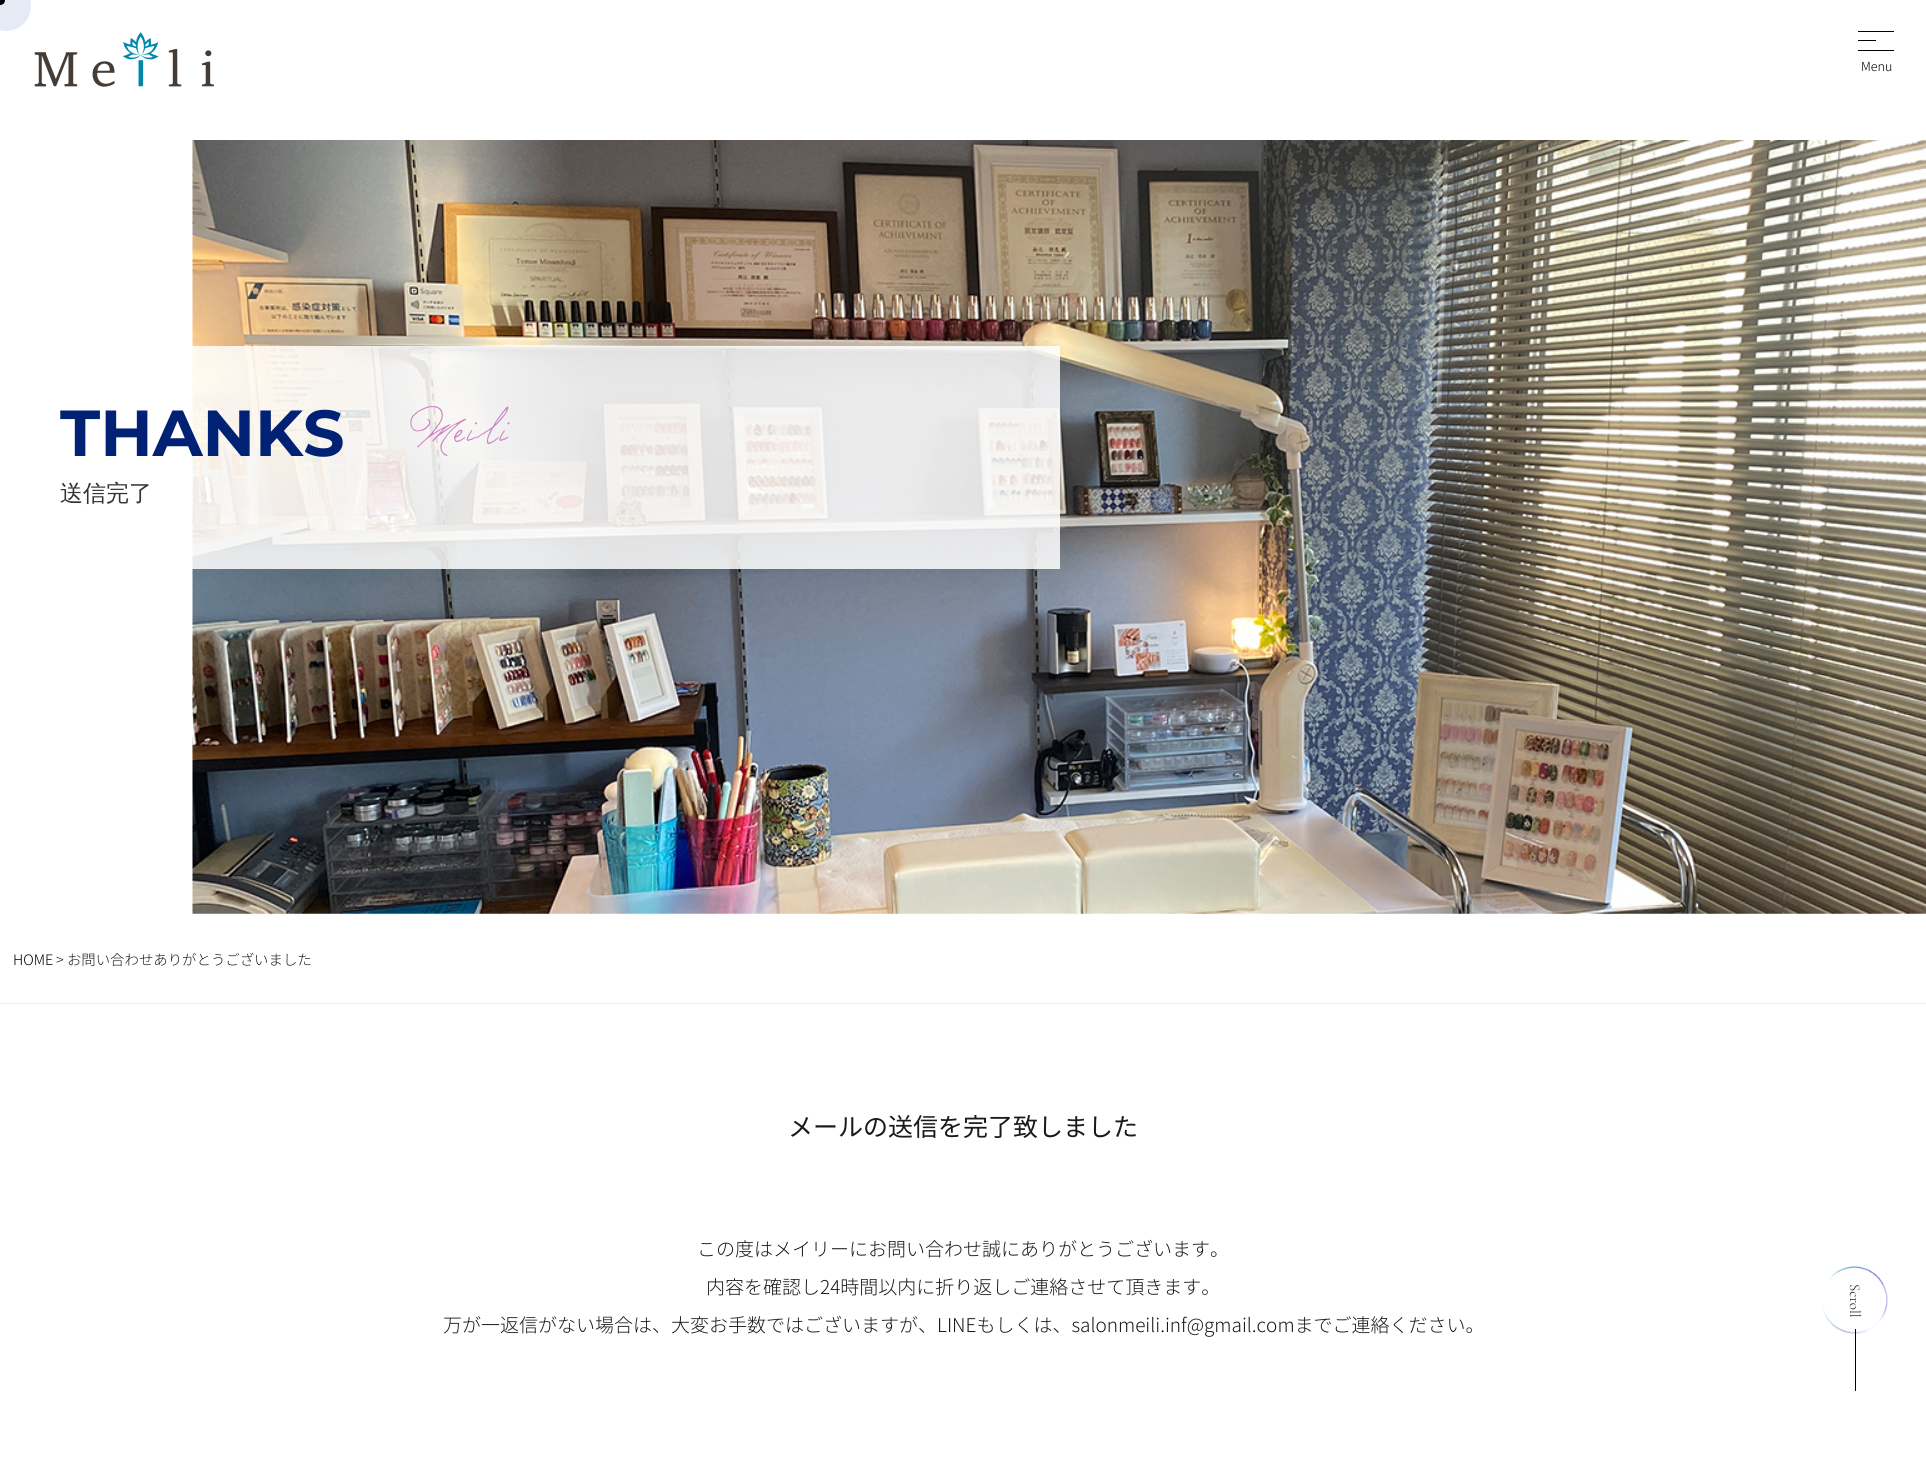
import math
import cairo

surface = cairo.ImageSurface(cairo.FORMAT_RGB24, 1926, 1463)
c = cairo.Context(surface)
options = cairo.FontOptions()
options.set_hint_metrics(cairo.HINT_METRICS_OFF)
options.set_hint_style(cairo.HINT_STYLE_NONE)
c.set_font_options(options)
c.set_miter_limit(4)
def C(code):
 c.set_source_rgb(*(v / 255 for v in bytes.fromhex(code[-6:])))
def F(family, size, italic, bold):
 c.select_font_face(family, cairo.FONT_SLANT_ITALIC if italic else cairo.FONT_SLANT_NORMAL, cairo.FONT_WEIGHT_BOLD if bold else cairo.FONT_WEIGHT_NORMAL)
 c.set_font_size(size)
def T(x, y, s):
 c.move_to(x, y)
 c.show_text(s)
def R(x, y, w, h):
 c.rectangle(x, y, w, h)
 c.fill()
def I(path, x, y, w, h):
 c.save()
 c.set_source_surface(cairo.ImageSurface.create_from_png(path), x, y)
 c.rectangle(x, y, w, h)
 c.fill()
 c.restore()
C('ffffff')
c.paint()
C('e6eaf5')
c.arc(6,6,25,0,2 * math.pi)
c.fill()
C('000000')
c.arc(0,0,5,0,2 * math.pi)
c.fill()
R(1858,31,36,1)
R(1858,40,18,1)
R(1858,50,36,1)
F('Noto Sans JP Light',12.5,0,0)
T(1861,71,'Menu')
I('1.png',34,32,180,55)
I('2.png',192,140,1734,774)
c.set_source_rgba(1,1,1,0.85)
R(192,346,868,223)
F('Montserrat',65,0,1)
C('002174')
T(60,456,'THANKS')
I('3.png',410,406,100,50)
F('WenQuanYi Zen Hei Medium',23,0,0)
C('323232')
T(60,501,'送信完了')
C('e9f1f5')
R(0,1003,1926,1)
F('Noto Sans JP Light',14.4,0,0)
C('000000')
T(13,965,'HOME')
C('1a1a1a')
T(56,965,'> お問い合わせありがとうございました')
F('Noto Sans JP',25,0,0)
T(788,1136,'メールの送信を完了致しました')
F('Noto Sans JP Light',19,0,0)
T(697,1256,'この度はメイリーにお問い合わせ誠にありがとうございます。')
T(706,1294,'内容を確認し24時間以内に折り返しご連絡させて頂きます。')
T(443,1332,'万が一返信がない場合は、大変お手数ではございますが、LINEもしくは、salonmeili.inf@gmail.comまでご連絡ください。')
F('Cormorant Infant Light',15,0,0)
c.save()
c.translate(1850,1284)
c.rotate(90 * math.pi / 180)
T(0,0,'Scroll')
c.restore()
I('4.png',1822,1266,66,68)
C('000000')
R(1855,1329,1,62)
surface.write_to_png('o.png')
